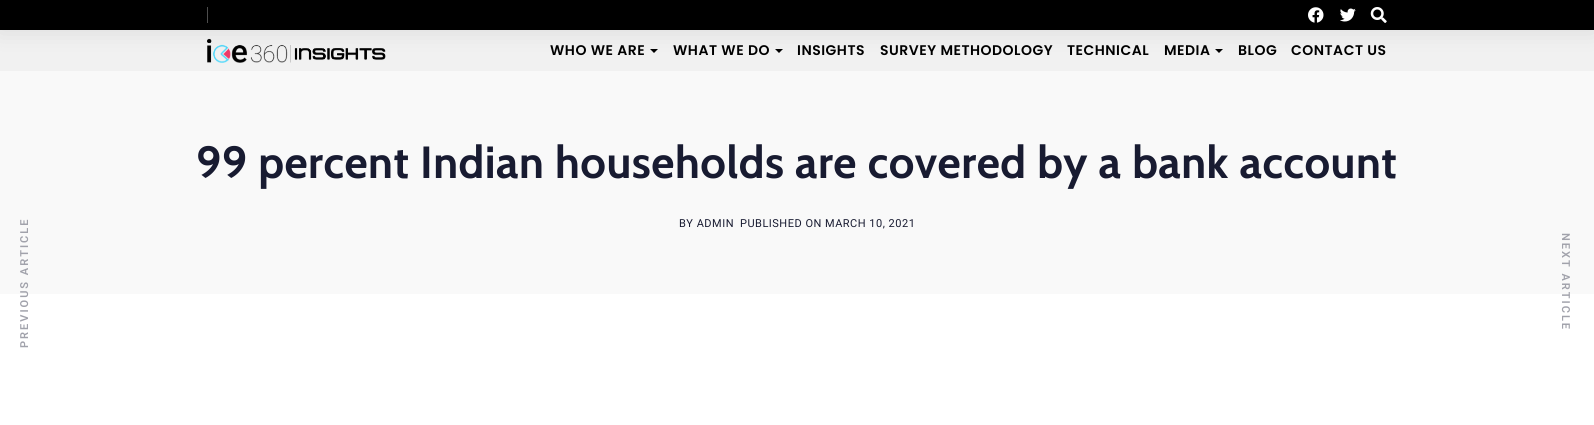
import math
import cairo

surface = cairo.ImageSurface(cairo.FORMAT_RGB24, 1594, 425)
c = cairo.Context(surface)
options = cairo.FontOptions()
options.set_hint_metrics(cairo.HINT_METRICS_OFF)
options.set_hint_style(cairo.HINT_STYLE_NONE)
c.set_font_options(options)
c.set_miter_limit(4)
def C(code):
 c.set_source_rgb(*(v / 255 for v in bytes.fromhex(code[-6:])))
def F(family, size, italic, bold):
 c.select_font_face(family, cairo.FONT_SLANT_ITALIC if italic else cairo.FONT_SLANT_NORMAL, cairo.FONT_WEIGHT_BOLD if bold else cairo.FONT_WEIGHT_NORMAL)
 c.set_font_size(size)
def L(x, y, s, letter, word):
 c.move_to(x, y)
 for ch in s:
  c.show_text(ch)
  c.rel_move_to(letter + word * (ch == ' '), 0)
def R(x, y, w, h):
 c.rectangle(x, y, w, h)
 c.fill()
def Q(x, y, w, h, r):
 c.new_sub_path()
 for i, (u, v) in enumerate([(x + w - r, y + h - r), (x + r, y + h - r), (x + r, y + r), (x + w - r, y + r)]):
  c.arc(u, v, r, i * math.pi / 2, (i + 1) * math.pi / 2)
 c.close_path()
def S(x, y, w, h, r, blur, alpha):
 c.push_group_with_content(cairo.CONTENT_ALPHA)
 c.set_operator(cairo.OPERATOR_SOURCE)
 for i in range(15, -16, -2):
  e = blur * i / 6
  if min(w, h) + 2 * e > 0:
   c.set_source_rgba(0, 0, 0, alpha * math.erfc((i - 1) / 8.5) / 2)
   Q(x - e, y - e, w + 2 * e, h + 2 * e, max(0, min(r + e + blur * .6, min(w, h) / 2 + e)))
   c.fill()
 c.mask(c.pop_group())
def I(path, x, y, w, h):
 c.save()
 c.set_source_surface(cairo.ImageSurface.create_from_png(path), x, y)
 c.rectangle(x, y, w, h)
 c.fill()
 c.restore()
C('ffffff')
c.paint()
C('f1f1f1')
R(0,30,1594,41)
I('4.png',207,38,179,25)
C('000000')
c.new_path()
c.move_to(650,49)
c.line_to(658,49)
c.line_to(654,53)
c.close_path()
c.fill()
c.new_path()
c.move_to(775,49)
c.line_to(783,49)
c.line_to(779,53)
c.close_path()
c.fill()
c.new_path()
c.move_to(1215,49)
c.line_to(1223,49)
c.line_to(1219,53)
c.close_path()
c.fill()
C('000000')
S(0,0,1594,30,0,12,.1)
C('000000')
R(0,0,1594,30)
C('4d4d4d')
R(207,7,1,16)
I('1.png',1308,7,16,16)
I('2.png',1340,8,16,14)
I('3.png',1370,7,17,16)
F('Poppins SemiBold',14,0,0)
C('000000')
L(550,55,'WHO WE ARE',.5,0)
L(673,55,'WHAT WE DO',.5,0)
L(797,55,'INSIGHTS',.5,0)
L(880,55,'SURVEY METHODOLOGY',.5,0)
L(1067,55,'TECHNICAL',.5,0)
L(1164,55,'MEDIA',.5,0)
L(1238,55,'BLOG',.5,0)
L(1291,55,'CONTACT US',.5,0)
C('f9f9f9')
R(0,71,1594,223)
F('Cabin',45,0,1)
C('181b31')
L(196,178,'99 percent Indian households are covered by a bank account',.5,0)
F('Roboto',11,0,0)
L(679,227,'BY ADMIN',.5,0)
L(740,227,'PUBLISHED ON MARCH 10, 2021',.5,0)
F('Roboto SemiBold',11,0,0)
C('a1a2ab')
c.save()
c.translate(28,348)
c.rotate(-90 * math.pi / 180)
L(0,0,'PREVIOUS ARTICLE',2,0)
c.restore()
c.save()
c.translate(1562,233)
c.rotate(90 * math.pi / 180)
L(0,0,'NEXT ARTICLE',2,0)
c.restore()
surface.write_to_png('o.png')
